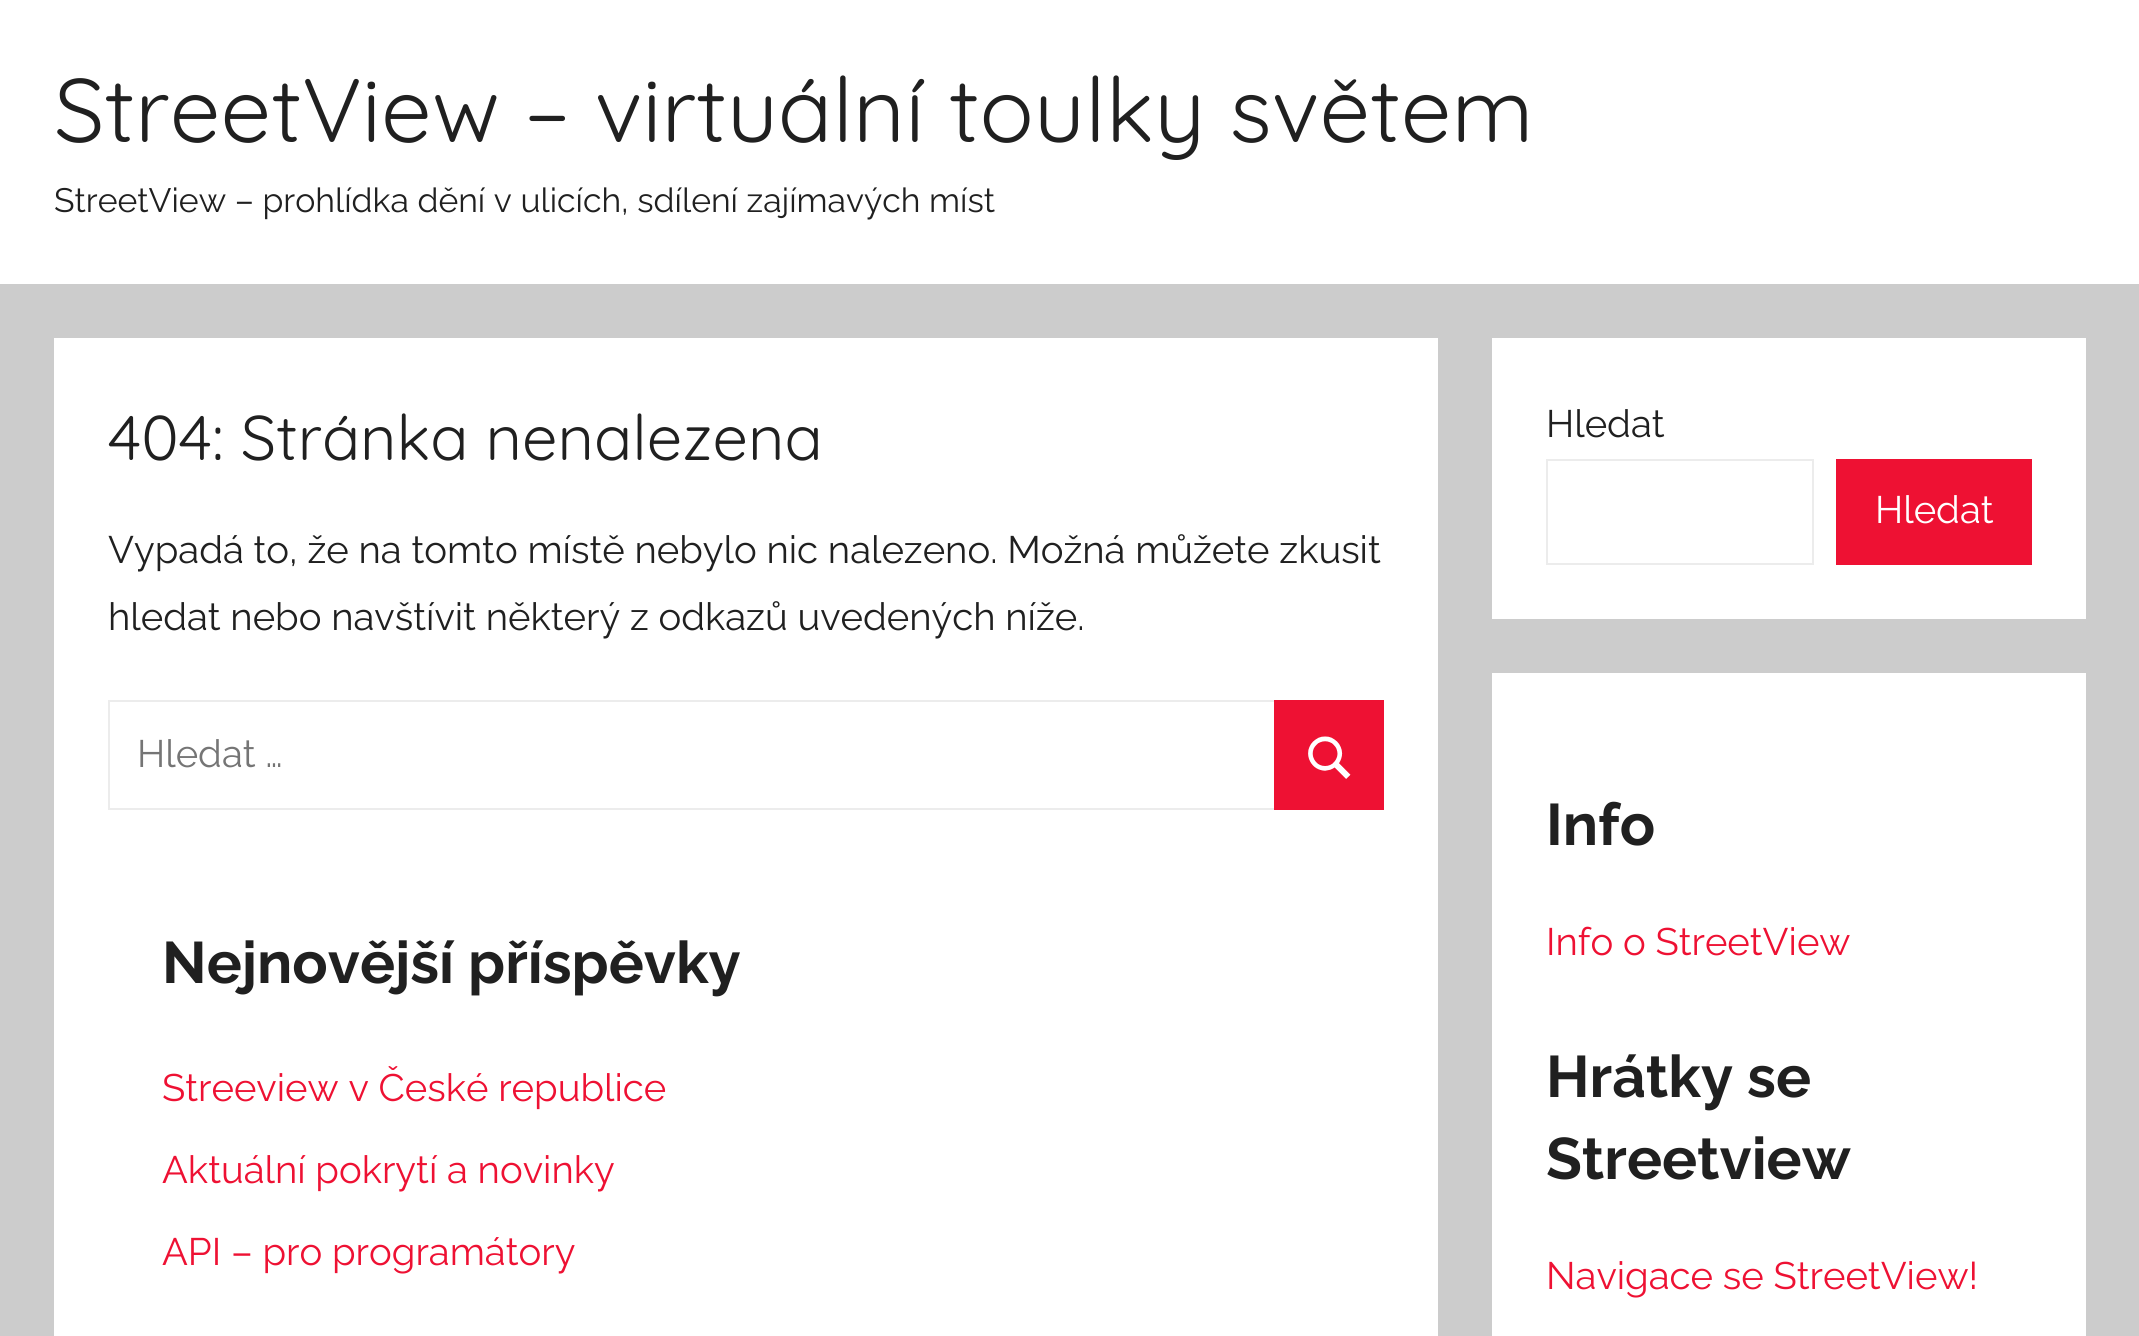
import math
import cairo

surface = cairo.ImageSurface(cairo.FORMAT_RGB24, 2139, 1336)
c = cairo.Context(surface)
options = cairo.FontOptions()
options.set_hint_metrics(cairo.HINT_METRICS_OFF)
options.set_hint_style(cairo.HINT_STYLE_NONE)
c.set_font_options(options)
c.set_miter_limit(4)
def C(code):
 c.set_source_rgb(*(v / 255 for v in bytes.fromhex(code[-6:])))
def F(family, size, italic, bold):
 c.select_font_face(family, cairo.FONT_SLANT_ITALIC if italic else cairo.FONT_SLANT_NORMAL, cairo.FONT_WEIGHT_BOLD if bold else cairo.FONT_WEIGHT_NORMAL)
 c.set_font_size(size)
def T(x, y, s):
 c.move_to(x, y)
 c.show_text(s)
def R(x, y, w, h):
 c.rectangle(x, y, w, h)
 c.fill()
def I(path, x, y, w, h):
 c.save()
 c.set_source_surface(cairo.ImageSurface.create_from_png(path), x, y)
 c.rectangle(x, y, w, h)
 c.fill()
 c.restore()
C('cccccc')
c.paint()
C('ffffff')
R(0,0,2139,284)
F('Quicksand',90,0,0)
C('202020')
T(54,142,'StreetView – virtuální toulky světem')
F('Raleway',33.75,0,0)
T(54,212,'StreetView – prohlídka dění v ulicích, sdílení zajímavých míst')
C('ffffff')
R(54,338,1384,998)
F('Quicksand',63,0,0)
C('202020')
T(108,460,'404: Stránka nenalezena')
F('Raleway',38.25,0,0)
T(108,563,'Vypadá to, že na tomto místě nebylo nic nalezeno. Možná můžete zkusit')
T(108,630,'hledat nebo navštívit některý z odkazů uvedených níže.')
c.rectangle(109,701,1274,108)
C('ececec')
c.stroke()
C('757575')
T(137,767,'Hledat …')
C('ee1133')
R(1274,700,110,110)
I('1.png',1308,736,43,43)
F('Raleway',58.5,0,1)
C('202020')
T(162,983,'Nejnovější příspěvky')
F('Raleway',38.25,0,0)
C('ee1133')
T(162,1101,'Streeview v České republice')
T(162,1183,'Aktuální pokrytí a novinky')
T(162,1265,'API – pro programátory')
C('ffffff')
R(1492,338,594,281)
C('202020')
T(1546,437,'Hledat')
c.rectangle(1547,460,266,104)
C('ececec')
c.stroke()
C('ee1133')
R(1836,459,196,106)
C('ffffff')
T(1875,523,'Hledat')
R(1492,673,594,663)
F('Raleway',58.5,0,1)
C('202020')
T(1546,845,'Info')
F('Raleway',38.25,0,0)
C('ee1133')
T(1546,955,'Info o StreetView')
F('Raleway',58.5,0,1)
C('202020')
T(1546,1097,'Hrátky se')
T(1546,1179,'Streetview')
F('Raleway',38.25,0,0)
C('ee1133')
T(1546,1289,'Navigace se StreetView!')
surface.write_to_png('o.png')
